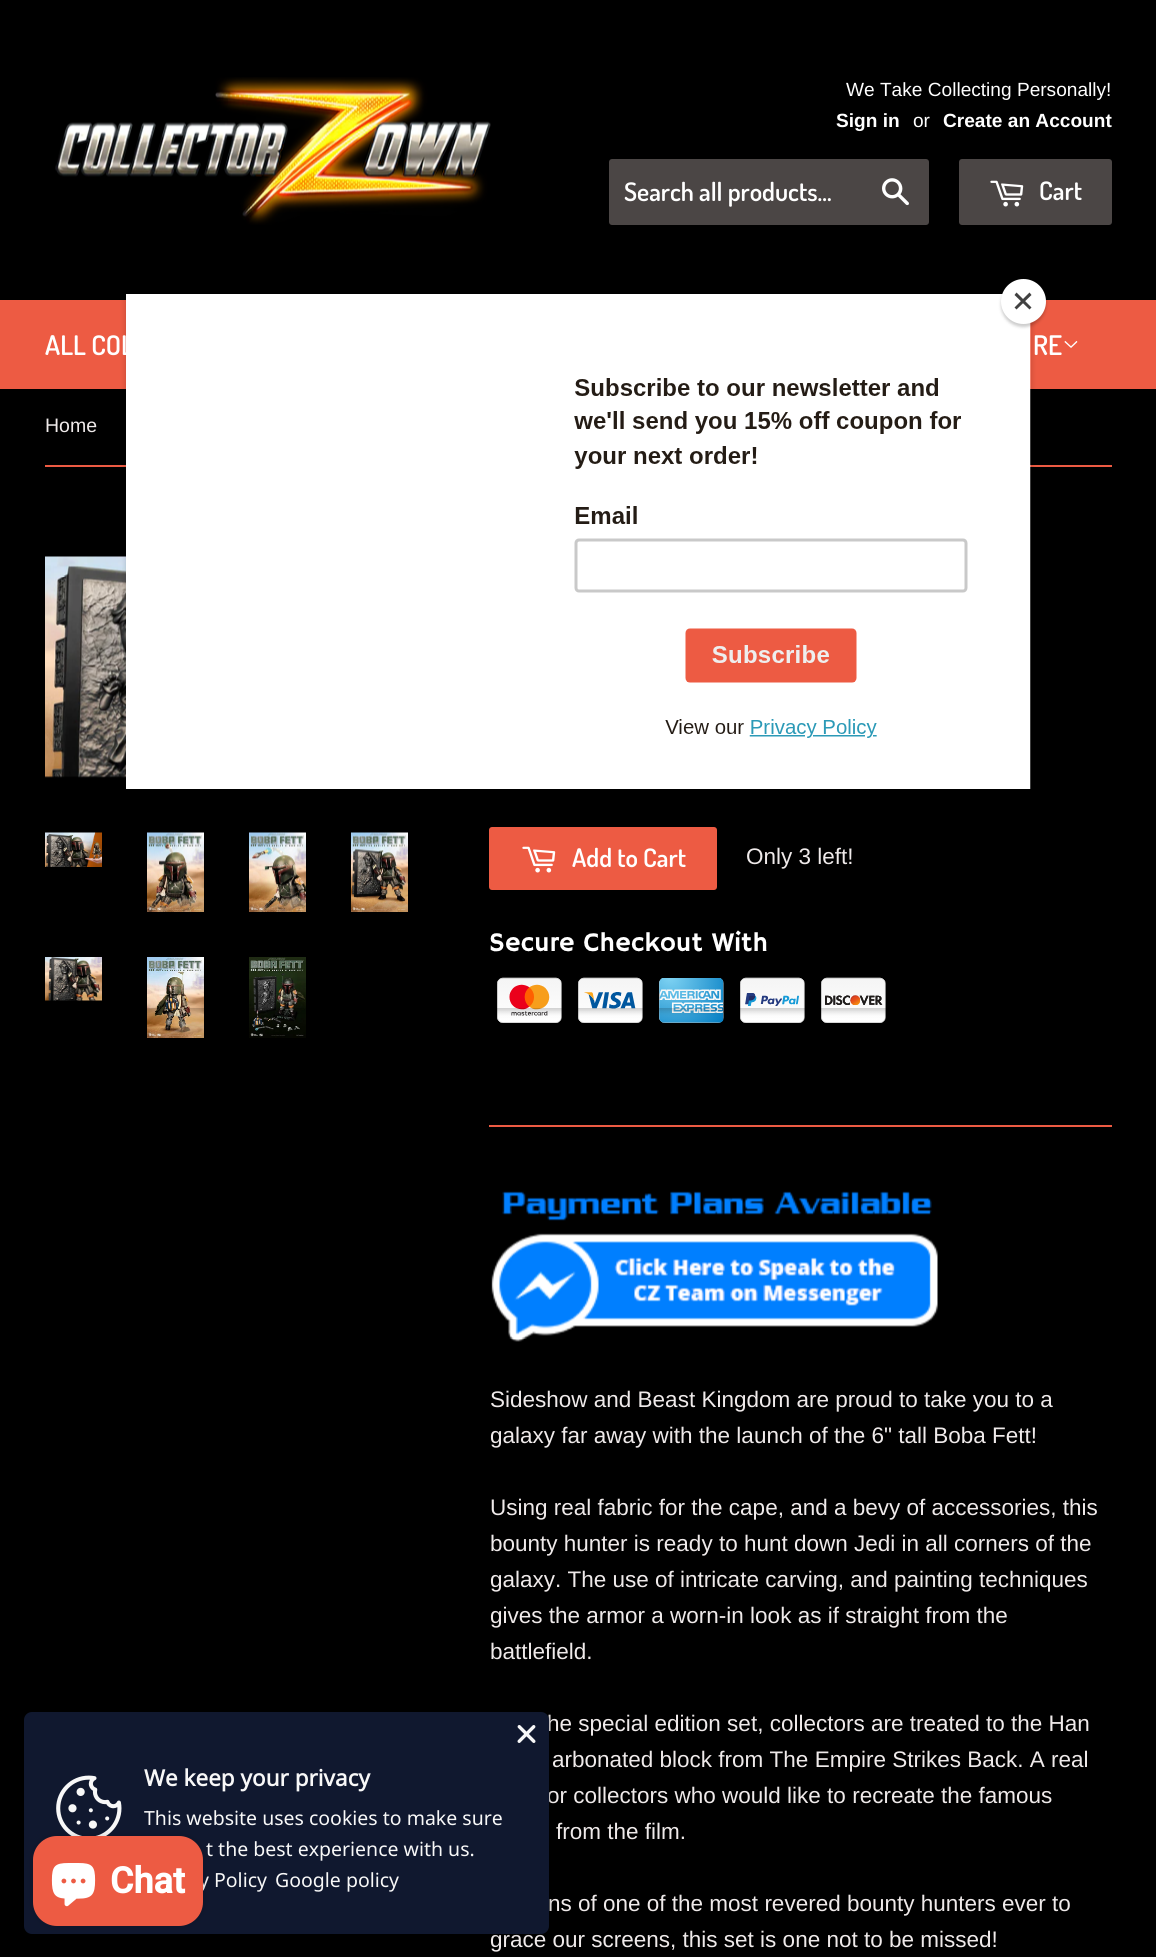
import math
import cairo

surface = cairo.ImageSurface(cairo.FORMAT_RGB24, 1156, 1957)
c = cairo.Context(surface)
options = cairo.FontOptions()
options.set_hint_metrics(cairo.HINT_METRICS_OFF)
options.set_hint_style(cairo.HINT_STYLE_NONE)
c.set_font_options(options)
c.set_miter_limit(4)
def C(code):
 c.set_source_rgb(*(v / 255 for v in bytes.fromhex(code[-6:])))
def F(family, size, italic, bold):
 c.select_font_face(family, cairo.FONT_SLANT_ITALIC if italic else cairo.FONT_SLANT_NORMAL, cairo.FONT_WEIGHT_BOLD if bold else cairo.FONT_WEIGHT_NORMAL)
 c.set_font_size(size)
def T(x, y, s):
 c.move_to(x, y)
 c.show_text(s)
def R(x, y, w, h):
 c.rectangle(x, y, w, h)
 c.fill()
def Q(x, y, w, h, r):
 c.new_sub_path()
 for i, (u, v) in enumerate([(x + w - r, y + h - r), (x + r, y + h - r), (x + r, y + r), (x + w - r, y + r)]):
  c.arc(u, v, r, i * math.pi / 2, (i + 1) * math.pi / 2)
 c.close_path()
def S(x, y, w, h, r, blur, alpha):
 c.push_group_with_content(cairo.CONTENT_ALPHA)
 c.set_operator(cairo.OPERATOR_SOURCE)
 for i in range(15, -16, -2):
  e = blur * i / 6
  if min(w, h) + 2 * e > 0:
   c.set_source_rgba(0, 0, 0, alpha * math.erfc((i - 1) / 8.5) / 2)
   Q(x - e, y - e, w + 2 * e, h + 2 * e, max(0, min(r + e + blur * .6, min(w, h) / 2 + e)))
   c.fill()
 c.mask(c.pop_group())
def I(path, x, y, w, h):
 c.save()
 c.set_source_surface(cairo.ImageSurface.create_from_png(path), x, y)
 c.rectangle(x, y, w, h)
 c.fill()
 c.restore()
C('000000')
c.paint()
I('1.png',55,77,436,148)
F('Liberation Sans',19.1,0,0)
C('ffffff')
T(846,96,'We Take Collecting Personally!')
F('Liberation Sans',19.1,0,1)
T(836,127,'Sign in')
F('Liberation Sans',19.1,0,0)
T(913,127,'or')
F('Liberation Sans',19.1,0,1)
T(943,127,'Create an Account')
C('4b4645')
Q(609,159,320,66,3)
c.fill()
F('Dosis SemiBold',25.5,0,0)
C('ffffff')
T(624,201,'Search all products...')
I('2.png',882,178,27,28)
C('4b4645')
Q(959,159,153,66,3)
c.fill()
I('3.png',990,180,34,27)
C('ffffff')
T(1039,200,'Cart')
C('ed5b43')
R(0,300,1156,89)
R(45,465,1067,2)
I('6.png',45,556,81,222)
I('8.png',147,832,57,80)
I('9.png',249,832,57,80)
I('10.png',351,832,57,80)
I('12.png',147,957,57,81)
I('13.png',249,957,57,81)
Q(489,827,228,63,3)
c.fill()
I('14.png',522,846,34,27)
I('15.png',490,930,396,93)
c.save()
c.set_fill_rule(cairo.FILL_RULE_EVEN_ODD)
c.new_path()
c.move_to(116,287)
c.line_to(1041,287)
c.line_to(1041,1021)
c.line_to(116,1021)
c.close_path()
c.move_to(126,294)
c.line_to(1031,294)
c.line_to(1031,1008)
c.line_to(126,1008)
c.close_path()
c.clip()
C('000000')
S(126,297,905,714,0,3,.2)
c.restore()
F('Dosis SemiBold',27,0,0)
C('ffffff')
T(45,355,'ALL COL')
I('4.png',126,294,905,495)
C('000000')
S(1001,282,45,45,22.5,1.5,.2)
C('ffffff')
c.arc(1023.5,301.5,22.5,0,2 * math.pi)
c.fill()
C('414141')
c.new_path()
c.move_to(1029.5,292.5)
c.line_to(1031.5,295)
c.line_to(1016.5,309.5)
c.line_to(1014.5,307.5)
c.close_path()
c.fill()
c.new_path()
c.move_to(1014.5,295)
c.line_to(1016.5,292.5)
c.line_to(1031.5,307.5)
c.line_to(1029.5,309.5)
c.close_path()
c.fill()
C('ffffff')
T(1033,355,'RE')
I('5.png',1064,341,14,7)
F('Liberation Sans',19.5,0,0)
C('efeaea')
T(45,432,'Home')
I('7.png',45,832,57,35)
I('11.png',45,957,57,44)
F('Dosis SemiBold',25.5,0,0)
C('ffffff')
T(572,867,'Add to Cart')
F('Liberation Sans',22.5,0,0)
C('efeaea')
T(746,864,'Only 3 left!')
C('ed5b43')
R(489,1125,623,2)
I('16.png',491,1191,447,151)
C('efeaea')
T(490,1407,'Sideshow and Beast Kingdom are proud to take you to a')
T(490,1443,'galaxy far away with the launch of the 6" tall Boba Fett!')
T(490,1515,'Using real fabric for the cape, and a bevy of accessories, this')
T(490,1551,'bounty hunter is ready to hunt down Jedi in all corners of the')
T(490,1587,'galaxy. The use of intricate carving, and painting techniques')
T(490,1623,'gives the armor a worn-in look as if straight from the')
T(490,1659,'battlefield.')
T(547,1731,'he special edition set, collectors are treated to the Han')
T(552,1767,'arbonated block from The Empire Strikes Back. A real')
T(547,1803,'or collectors who would like to recreate the famous')
T(556,1839,'from the film.')
T(548,1911,'ns of one of the most revered bounty hunters ever to')
T(490,1947,'grace our screens, this set is one not to be missed!')
C('000000')
S(24,1712,525,222,8,1.5,.5)
C('10182f')
Q(24,1712,525,222,8)
c.fill()
I('17.png',517,1725,19,18)
I('18.png',56,1775,66,61)
F('Noto Sans',22.5,0,1)
C('f8f8f8')
T(144,1786,'We keep your privacy')
F('Noto Sans',19.5,0,0)
T(144,1825,'This website uses cookies to make sure')
T(206,1856,'t the best experience with us.')
T(199,1887,'y Policy')
T(275,1887,'Google policy')
C('000000')
S(33,1836,170,90,24,4,.15)
C('ed5b43')
Q(33,1836,170,90,24)
c.fill()
I('19.png',51,1863,45,44)
F('Roboto',36,0,1)
C('ffffff')
T(110,1893,'Chat')
surface.write_to_png('o.png')
